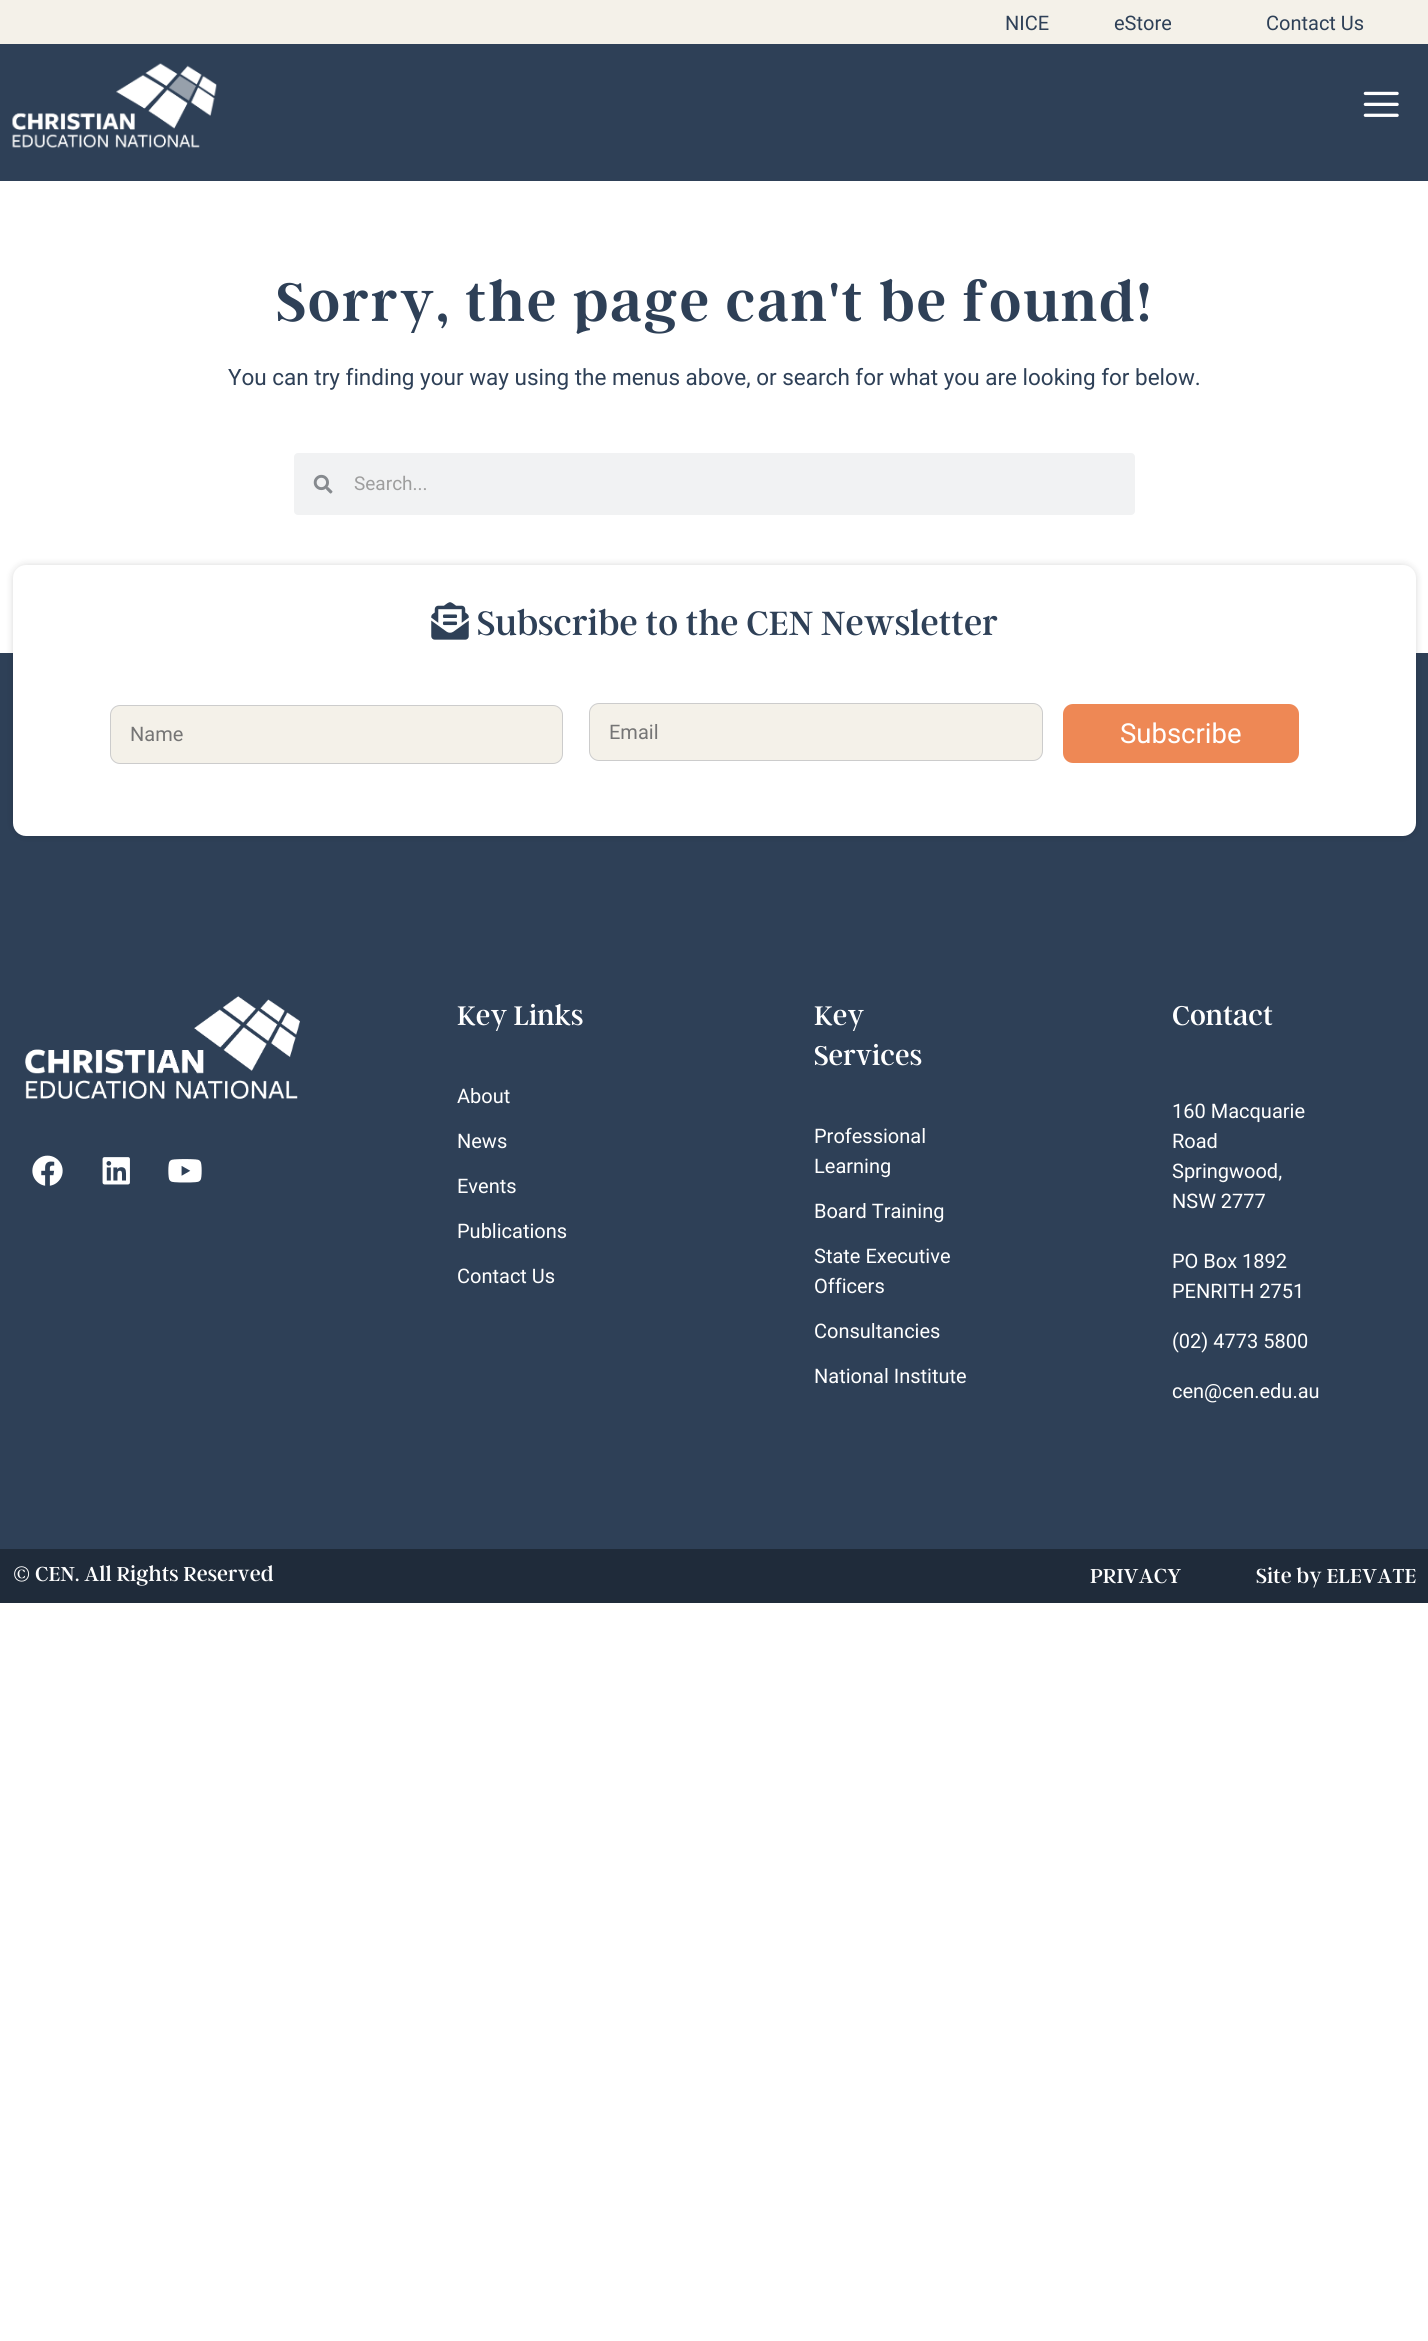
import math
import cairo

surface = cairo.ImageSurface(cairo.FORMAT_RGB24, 1428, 2341)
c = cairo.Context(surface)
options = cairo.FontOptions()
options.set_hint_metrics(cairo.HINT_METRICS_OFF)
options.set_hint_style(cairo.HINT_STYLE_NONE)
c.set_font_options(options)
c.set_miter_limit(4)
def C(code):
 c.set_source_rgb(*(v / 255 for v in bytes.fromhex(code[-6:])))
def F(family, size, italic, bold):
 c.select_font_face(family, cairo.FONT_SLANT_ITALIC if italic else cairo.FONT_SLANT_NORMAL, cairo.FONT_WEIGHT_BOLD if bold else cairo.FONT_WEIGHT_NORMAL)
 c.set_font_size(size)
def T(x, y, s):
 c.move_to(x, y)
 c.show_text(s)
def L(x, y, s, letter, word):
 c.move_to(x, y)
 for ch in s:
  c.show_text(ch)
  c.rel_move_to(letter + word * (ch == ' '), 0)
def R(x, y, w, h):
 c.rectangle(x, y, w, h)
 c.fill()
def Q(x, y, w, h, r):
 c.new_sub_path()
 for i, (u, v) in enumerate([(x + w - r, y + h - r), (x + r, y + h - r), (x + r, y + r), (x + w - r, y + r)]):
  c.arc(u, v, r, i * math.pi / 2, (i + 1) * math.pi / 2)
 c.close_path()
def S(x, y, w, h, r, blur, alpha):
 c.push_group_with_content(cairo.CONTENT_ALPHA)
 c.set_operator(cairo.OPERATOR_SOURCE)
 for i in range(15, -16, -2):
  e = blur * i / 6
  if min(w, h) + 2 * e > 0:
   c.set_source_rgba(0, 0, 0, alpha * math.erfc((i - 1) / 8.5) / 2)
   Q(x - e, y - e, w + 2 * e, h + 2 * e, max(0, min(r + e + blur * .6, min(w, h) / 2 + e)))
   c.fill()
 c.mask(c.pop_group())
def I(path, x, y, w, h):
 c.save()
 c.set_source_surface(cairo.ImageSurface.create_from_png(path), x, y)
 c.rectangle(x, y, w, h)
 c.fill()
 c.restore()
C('ffffff')
c.paint()
C('f4f1e9')
R(0,0,1428,44)
F('Roboto',20,0,0)
C('2e4057')
T(1005,30,'NICE')
T(1114,30,'eStore')
T(1266,30,'Contact Us')
R(0,44,1428,137)
I('1.png',12,63,205,85)
I('2.png',1363,91,36,26)
F('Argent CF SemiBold',60,0,0)
L(276,321,'Sorry, the page can\'t be found!',1.8,0)
F('Roboto',22.5,0,0)
T(228,385,'You can try finding your way using the menus above, or search for what you are looking for below.')
C('f1f2f3')
Q(294,453,841,62,4)
c.fill()
I('3.png',313,474,20,20)
F('Roboto',19,0,0)
C('9e9e9e')
T(354,490,'Search...')
C('2e4057')
R(0,653,1428,896)
C('000000')
S(13,565,1403,271,13,4,.15)
C('ffffff')
Q(13,565,1403,271,13)
c.fill()
I('4.png',431,602,38,38)
F('Argent CF',37.5,0,0)
C('2e4057')
T(477,635,'Subscribe to the CEN Newsletter')
C('f4f1e9')
Q(110.5,705.5,452,58,9.5)
c.fill_preserve()
C('cccccc')
c.set_line_width(1)
c.stroke()
F('Roboto',20,0,0)
C('757575')
T(130,741,'Name')
C('f4f1e9')
Q(589.5,703.5,453,57,9.5)
c.fill_preserve()
C('cccccc')
c.stroke()
C('757575')
T(609,739,'Email')
C('ee8855')
Q(1063,704,236,59,10)
c.fill()
F('Roboto',27.5,0,0)
C('ffffff')
T(1120,743,'Subscribe')
I('5.png',25,996,275,103)
I('6.png',32,1155,31,31)
I('7.png',102,1157,28,28)
I('8.png',168,1159,34,24)
F('Argent CF',30,0,0)
T(457,1025,'Key Links')
F('Roboto',20,0,0)
T(457,1103,'About')
T(457,1148,'News')
T(457,1193,'Events')
T(457,1238,'Publications')
T(457,1283,'Contact Us')
F('Argent CF',30,0,0)
T(814,1025,'Key')
T(814,1065,'Services')
F('Roboto',20,0,0)
T(814,1143,'Professional')
T(814,1173,'Learning')
T(814,1218,'Board Training')
T(814,1263,'State Executive')
T(814,1293,'Officers')
T(814,1338,'Consultancies')
T(814,1383,'National Institute')
F('Argent CF',30,0,0)
T(1172,1025,'Contact')
F('Roboto',20,0,0)
T(1172,1118,'160 Macquarie')
T(1172,1148,'Road')
T(1172,1178,'Springwood,')
T(1172,1208,'NSW 2777')
T(1172,1268,'PO Box 1892')
T(1172,1298,'PENRITH 2751')
T(1172,1348,'(02) 4773 5800')
T(1172,1398,'cen@cen.edu.au')
C('1f2b3a')
R(0,1549,1428,54)
F('Argent CF',22.5,0,0)
C('ffffff')
T(13,1581,'© CEN. All Rights Reserved')
T(1090,1583,'PRIVACY')
T(1256,1583,'Site by ELEVATE')
surface.write_to_png('o.png')
